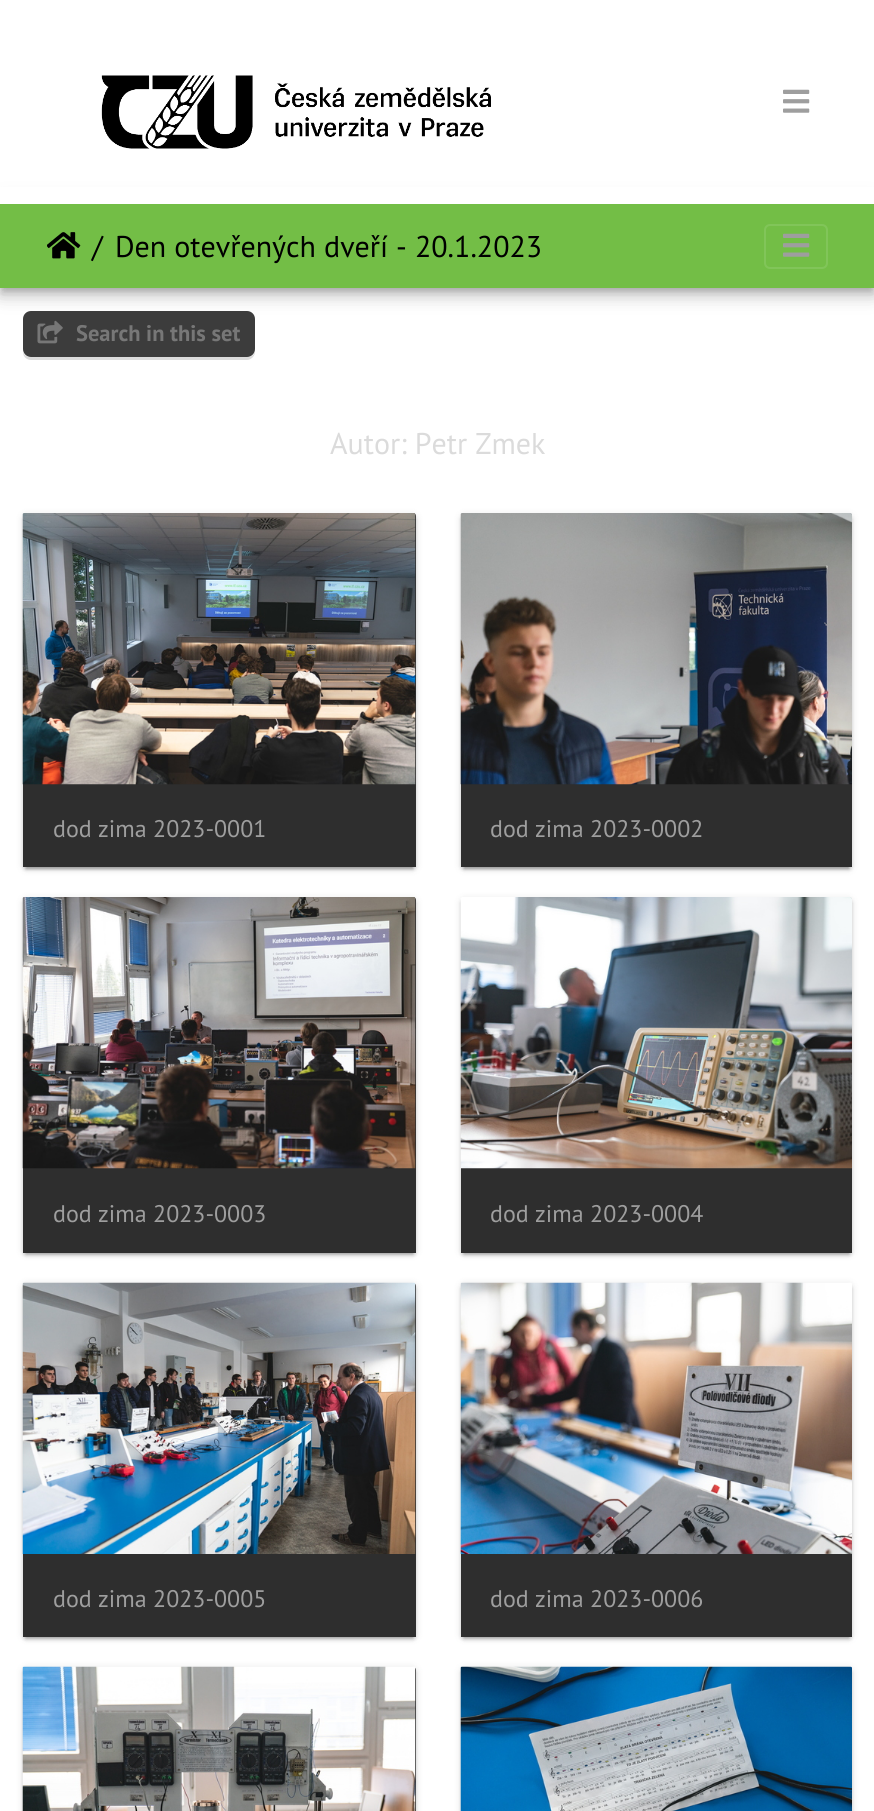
import math
import cairo

surface = cairo.ImageSurface(cairo.FORMAT_RGB24, 874, 1811)
c = cairo.Context(surface)
options = cairo.FontOptions()
options.set_hint_metrics(cairo.HINT_METRICS_OFF)
options.set_hint_style(cairo.HINT_STYLE_NONE)
c.set_font_options(options)
c.set_miter_limit(4)
def C(code):
 c.set_source_rgb(*(v / 255 for v in bytes.fromhex(code[-6:])))
def F(family, size, italic, bold):
 c.select_font_face(family, cairo.FONT_SLANT_ITALIC if italic else cairo.FONT_SLANT_NORMAL, cairo.FONT_WEIGHT_BOLD if bold else cairo.FONT_WEIGHT_NORMAL)
 c.set_font_size(size)
def T(x, y, s):
 c.move_to(x, y)
 c.show_text(s)
def R(x, y, w, h):
 c.rectangle(x, y, w, h)
 c.fill()
def Q(x, y, w, h, r):
 c.new_sub_path()
 for i, (u, v) in enumerate([(x + w - r, y + h - r), (x + r, y + h - r), (x + r, y + r), (x + w - r, y + r)]):
  c.arc(u, v, r, i * math.pi / 2, (i + 1) * math.pi / 2)
 c.close_path()
def S(x, y, w, h, r, blur, alpha):
 c.push_group_with_content(cairo.CONTENT_ALPHA)
 c.set_operator(cairo.OPERATOR_SOURCE)
 for i in range(15, -16, -2):
  e = blur * i / 6
  if min(w, h) + 2 * e > 0:
   c.set_source_rgba(0, 0, 0, alpha * math.erfc((i - 1) / 8.5) / 2)
   Q(x - e, y - e, w + 2 * e, h + 2 * e, max(0, min(r + e + blur * .6, min(w, h) / 2 + e)))
   c.fill()
 c.mask(c.pop_group())
def I(path, x, y, w, h):
 c.save()
 c.set_source_surface(cairo.ImageSurface.create_from_png(path), x, y)
 c.rectangle(x, y, w, h)
 c.fill()
 c.restore()
C('ffffff')
c.paint()
C('000000')
S(2,210,871,81,0,4,.2)
C('dbdbdb')
c.new_path()
c.move_to(23,352)
c.curve_to(23,357,27,360,31,360)
c.line_to(247,360)
c.curve_to(251,360,255,356,255,352)
c.line_to(255,350)
c.curve_to(255,354,252,357,248,357)
c.line_to(30,357)
c.curve_to(27,357,24,355,23,352)
c.close_path()
c.fill()
C('3c3c3c')
Q(23,311,232,46,8)
c.fill()
I('5.png',37,320,26,24)
C('000000')
S(0,206,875,84,0,13.5,.12)
S(0,213,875,84,0,7.5,.14)
C('ffffff')
R(0,187,874,17)
I('1.png',101,75,390,74)
I('2.png',783,89,27,24)
C('73be46')
R(0,204,874,84)
I('3.png',47,232,34,27)
F('PT Sans',30,0,0)
C('000000')
T(92,257,'/')
T(115,257,'Den otevřených dveří - 20.1.2023')
Q(765,225,62,43,5)
C('81c559')
c.stroke()
I('4.png',783,233,27,24)
F('PT Sans',22.5,0,1)
C('777777')
T(76,341,'Search in this set')
F('PT Sans',30,0,0)
C('dbdbdb')
T(330,454,'Autor: Petr Zmek')
C('000000')
S(23,515,393,354,3,4,.12)
S(26,521,387,348,0,1,.2)
S(23,516,393,354,3,1.5,.14)
C('2e2e2e')
Q(23,513,393,354,3)
c.fill()
I('6.png',22,513,394,272)
R(23,864,393,3)
F('PT Sans',24,0,0)
C('9e9e9e')
T(53,837,'dod zima 2023-0001')
C('000000')
S(461,515,391,354,3,4,.12)
S(464,521,385,348,0,1,.2)
S(461,516,391,354,3,1.5,.14)
C('2e2e2e')
Q(461,513,391,354,3)
c.fill()
I('7.png',460,513,392,272)
R(461,864,391,3)
C('9e9e9e')
T(490,837,'dod zima 2023-0002')
C('000000')
S(23,899,393,355,3,4,.12)
S(26,905,387,349,0,1,.2)
S(23,900,393,356,3,1.5,.14)
C('2e2e2e')
Q(23,897,393,356,3)
c.fill()
I('8.png',22,897,394,272)
R(23,1250,393,3)
C('9e9e9e')
T(53,1222,'dod zima 2023-0003')
C('000000')
S(461,899,391,355,3,4,.12)
S(464,905,385,349,0,1,.2)
S(461,900,391,356,3,1.5,.14)
C('2e2e2e')
Q(461,897,391,356,3)
c.fill()
I('9.png',460,897,392,272)
R(461,1250,391,3)
C('9e9e9e')
T(490,1222,'dod zima 2023-0004')
C('000000')
S(23,1284,393,354,3,4,.12)
S(26,1290,387,348,0,1,.2)
S(23,1286,393,354,3,1.5,.14)
C('2e2e2e')
Q(23,1283,393,354,3)
c.fill()
I('10.png',22,1282,394,272)
R(23,1634,393,3)
C('9e9e9e')
T(53,1607,'dod zima 2023-0005')
C('000000')
S(461,1284,391,354,3,4,.12)
S(464,1290,385,348,0,1,.2)
S(461,1286,391,354,3,1.5,.14)
I('11.png',460,1282,392,272)
C('2e2e2e')
R(461,1554,391,83)
C('9e9e9e')
T(490,1607,'dod zima 2023-0006')
C('000000')
S(23,1668,393,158,3,4,.12)
S(23,1670,393,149,3,1.5,.14)
C('2e2e2e')
Q(23,1667,393,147,3)
c.fill()
I('12.png',22,1666,394,145)
C('000000')
S(461,1668,391,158,3,4,.12)
S(461,1670,391,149,3,1.5,.14)
I('13.png',460,1666,392,145)
surface.write_to_png('o.png')
